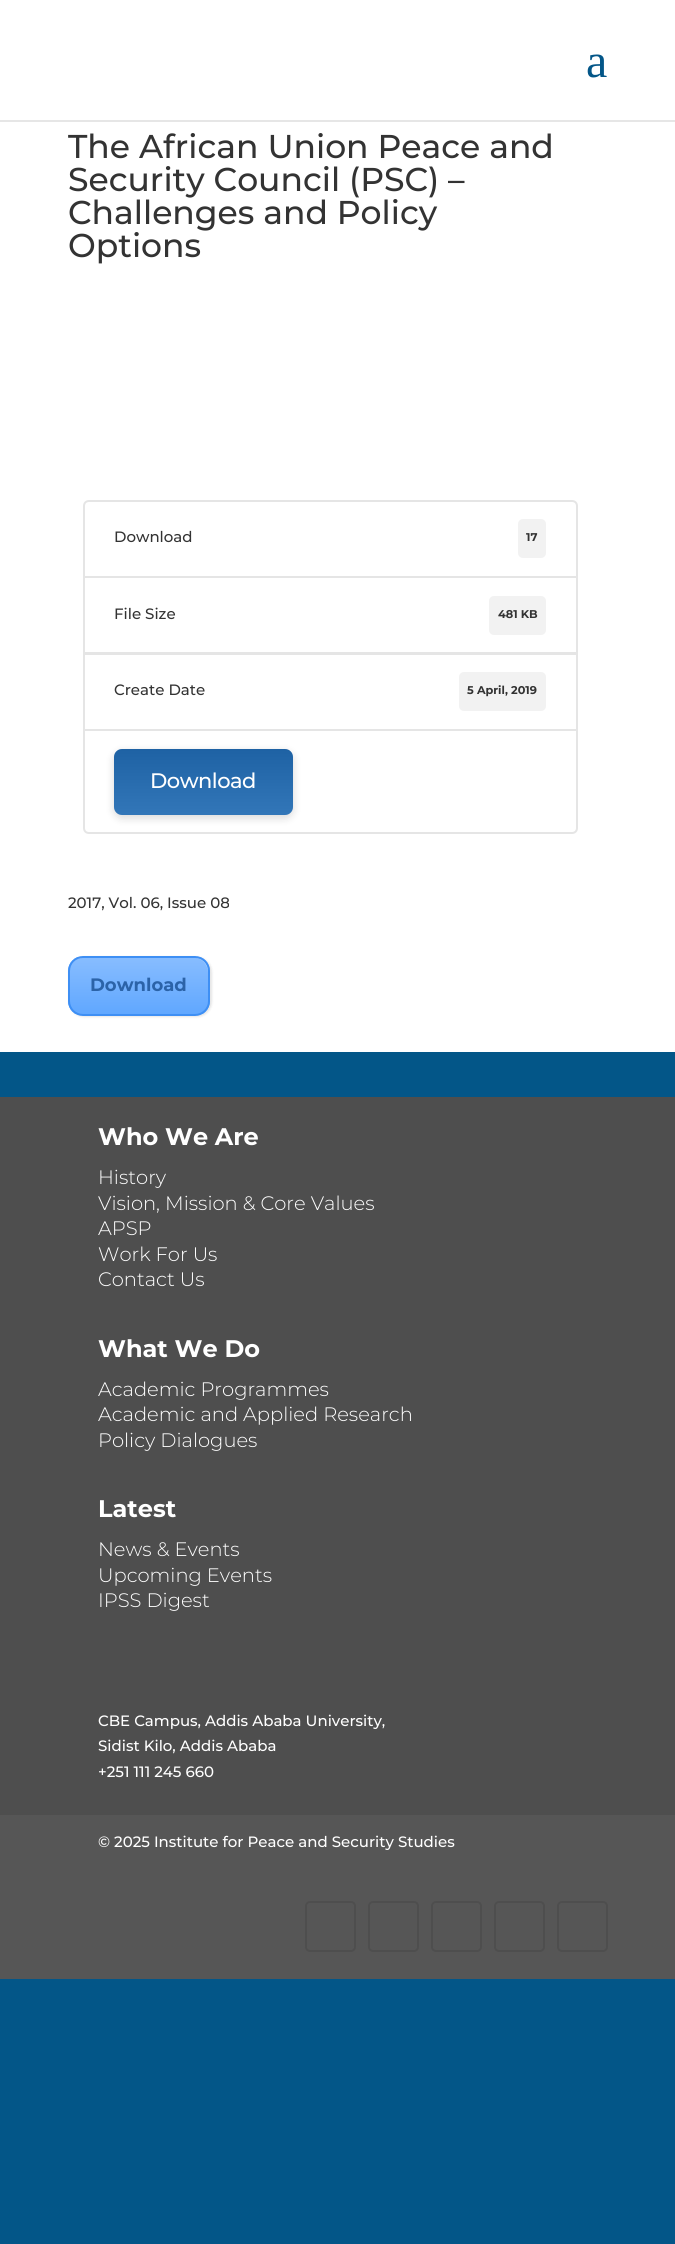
import math
import cairo

surface = cairo.ImageSurface(cairo.FORMAT_RGB24, 675, 2244)
c = cairo.Context(surface)
options = cairo.FontOptions()
options.set_hint_metrics(cairo.HINT_METRICS_OFF)
options.set_hint_style(cairo.HINT_STYLE_NONE)
c.set_font_options(options)
c.set_miter_limit(4)
def C(code):
 c.set_source_rgb(*(v / 255 for v in bytes.fromhex(code[-6:])))
def F(family, size, italic, bold):
 c.select_font_face(family, cairo.FONT_SLANT_ITALIC if italic else cairo.FONT_SLANT_NORMAL, cairo.FONT_WEIGHT_BOLD if bold else cairo.FONT_WEIGHT_NORMAL)
 c.set_font_size(size)
def T(x, y, s):
 c.move_to(x, y)
 c.show_text(s)
def L(x, y, s, letter, word):
 c.move_to(x, y)
 for ch in s:
  c.show_text(ch)
  c.rel_move_to(letter + word * (ch == ' '), 0)
def R(x, y, w, h):
 c.rectangle(x, y, w, h)
 c.fill()
def Q(x, y, w, h, r):
 c.new_sub_path()
 for i, (u, v) in enumerate([(x + w - r, y + h - r), (x + r, y + h - r), (x + r, y + r), (x + w - r, y + r)]):
  c.arc(u, v, r, i * math.pi / 2, (i + 1) * math.pi / 2)
 c.close_path()
def S(x, y, w, h, r, blur, alpha):
 c.push_group_with_content(cairo.CONTENT_ALPHA)
 c.set_operator(cairo.OPERATOR_SOURCE)
 for i in range(15, -16, -2):
  e = blur * i / 6
  if min(w, h) + 2 * e > 0:
   c.set_source_rgba(0, 0, 0, alpha * math.erfc((i - 1) / 8.5) / 2)
   Q(x - e, y - e, w + 2 * e, h + 2 * e, max(0, min(r + e + blur * .6, min(w, h) / 2 + e)))
   c.fill()
 c.mask(c.pop_group())
C('035688')
c.paint()
C('e6e6e6')
R(0,120,675,2)
C('ffffff')
R(0,0,675,120)
F('Liberation Serif',48,0,0)
C('035688')
T(586,77,'a')
C('ffffff')
R(0,122,675,930)
F('Montserrat Medium',33,0,0)
C('333333')
T(68,158,'The African Union Peace and')
T(68,191,'Security Council (PSC) –')
T(68,224,'Challenges and Policy')
T(68,257,'Options')
c.new_path()
c.move_to(89,501)
c.line_to(572,501)
c.curve_to(575,501,577,503,577,506)
c.line_to(577,577)
c.line_to(84,577)
c.line_to(84,506)
c.curve_to(84,503,86,501,89,501)
c.close_path()
C('e5e5e5')
c.stroke()
F('Montserrat Medium',15,0,0)
C('333333')
T(114,542,'Download')
C('f2f2f2')
Q(518,519,28,39,5)
c.fill()
F('Montserrat',11.25,0,1)
C('333333')
T(526,541,'17')
c.rectangle(84,577,493,76)
C('e5e5e5')
c.stroke()
F('Montserrat Medium',15,0,0)
C('333333')
T(114,619,'File Size')
C('f2f2f2')
Q(489,596,57,39,5)
c.fill()
F('Montserrat',11.25,0,1)
C('333333')
T(498,618,'481 KB')
c.rectangle(84,654,493,76)
C('e5e5e5')
c.stroke()
F('Montserrat Medium',15,0,0)
C('333333')
T(114,695,'Create Date')
C('f2f2f2')
Q(459,672,87,39,5)
c.fill()
F('Montserrat',11.25,0,1)
C('333333')
T(467,694,'5 April, 2019')
C('ffffff')
c.new_path()
c.move_to(84,730)
c.line_to(577,730)
c.line_to(577,828)
c.curve_to(577,831,575,833,572,833)
c.line_to(89,833)
c.curve_to(86,833,84,831,84,828)
c.close_path()
c.fill_preserve()
C('e5e5e5')
c.stroke()
C('000000')
S(114,752,179,66,8,4.5,.15)
C('216ab2')
Q(114,749,179,66,8)
c.fill()
gradient = cairo.LinearGradient(203,749,203,815)
gradient.add_color_stop_rgba(0,0,0,0,.08)
gradient.add_color_stop_rgba(1,1,1,1,.08)
c.set_source(gradient)
Q(114,749,179,66,8)
c.fill()
F('Montserrat Medium',21,0,0)
C('ffffff')
L(150,788,'Download',-.5,0)
F('Montserrat Medium',15,0,0)
C('333333')
T(68,908,'2017, Vol. 06, Issue 08')
C('000000')
S(69,957,143,60,15,1,.1)
c.save()
Q(68,956,142,60,15)
c.clip()
gradient = cairo.LinearGradient(139,957,139,1014)
gradient.add_color_stop_rgba(0,0.533,0.741,1,1)
gradient.add_color_stop_rgba(1,0.376,0.655,1,1)
c.set_source(gradient)
R(68,957,142,57)
c.restore()
c.set_source_rgba(1,1,1,0.4)
c.new_path()
c.move_to(82,958)
c.line_to(195,958)
c.curve_to(202,958,208,965,208,972)
c.line_to(208,1002)
c.curve_to(208,1004,208,1006,207,1008)
c.curve_to(208,1005,209,1003,209,1000)
c.line_to(209,971)
c.curve_to(209,963,203,957,195,957)
c.line_to(83,957)
c.curve_to(75,957,69,963,69,971)
c.line_to(69,972)
c.curve_to(69,965,75,958,82,958)
c.close_path()
c.fill()
Q(69,957,140,58,14)
C('3e8ff4')
c.stroke()
F('Montserrat',18,0,1)
C('2b63a8')
T(90,991,'Download')
C('4e4e4e')
R(0,1097,675,718)
F('Montserrat',24,0,1)
C('ffffff')
T(98,1145,'Who We Are')
F('Montserrat Light',19.5,0,0)
T(98,1184,'History')
T(98,1210,'Vision, Mission & Core Values')
T(98,1235,'APSP')
T(98,1261,'Work For Us')
T(98,1286,'Contact Us')
F('Montserrat',24,0,1)
T(98,1357,'What We Do')
F('Montserrat Light',19.5,0,0)
T(98,1396,'Academic Programmes')
T(98,1421,'Academic and Applied Research')
T(98,1447,'Policy Dialogues')
F('Montserrat',24,0,1)
T(98,1517,'Latest')
F('Montserrat Light',19.5,0,0)
T(98,1556,'News & Events')
T(98,1582,'Upcoming Events')
T(98,1607,'IPSS Digest')
F('Montserrat Medium',15,0,0)
T(98,1726,'CBE Campus, Addis Ababa University,')
T(98,1751,'Sidist Kilo, Addis Ababa')
T(98,1777,'+251 111 245 660')
C('565656')
R(0,1815,675,164)
C('ffffff')
T(98,1847,'© 2025 Institute for Peace and Security Studies')
Q(306,1902,49,49,4)
C('4e4e4e')
c.stroke()
Q(369,1902,49,49,4)
c.stroke()
Q(432,1902,49,49,4)
c.stroke()
Q(495,1902,49,49,4)
c.stroke()
Q(558,1902,49,49,4)
c.stroke()
surface.write_to_png('o.png')
